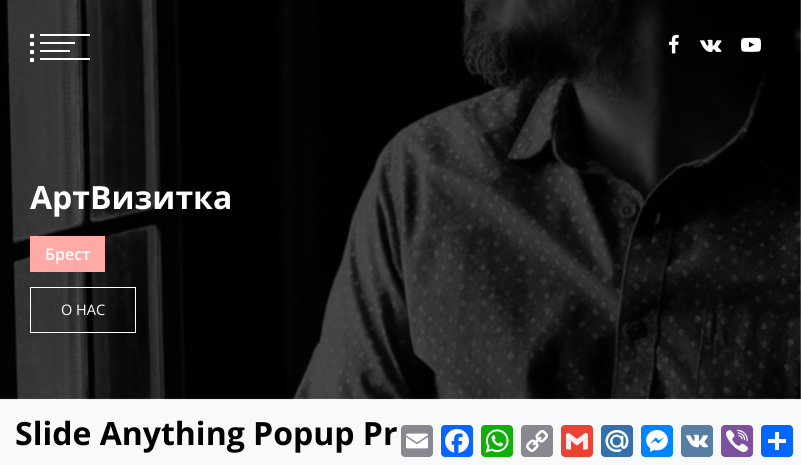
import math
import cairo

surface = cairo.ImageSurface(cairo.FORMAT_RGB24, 801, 465)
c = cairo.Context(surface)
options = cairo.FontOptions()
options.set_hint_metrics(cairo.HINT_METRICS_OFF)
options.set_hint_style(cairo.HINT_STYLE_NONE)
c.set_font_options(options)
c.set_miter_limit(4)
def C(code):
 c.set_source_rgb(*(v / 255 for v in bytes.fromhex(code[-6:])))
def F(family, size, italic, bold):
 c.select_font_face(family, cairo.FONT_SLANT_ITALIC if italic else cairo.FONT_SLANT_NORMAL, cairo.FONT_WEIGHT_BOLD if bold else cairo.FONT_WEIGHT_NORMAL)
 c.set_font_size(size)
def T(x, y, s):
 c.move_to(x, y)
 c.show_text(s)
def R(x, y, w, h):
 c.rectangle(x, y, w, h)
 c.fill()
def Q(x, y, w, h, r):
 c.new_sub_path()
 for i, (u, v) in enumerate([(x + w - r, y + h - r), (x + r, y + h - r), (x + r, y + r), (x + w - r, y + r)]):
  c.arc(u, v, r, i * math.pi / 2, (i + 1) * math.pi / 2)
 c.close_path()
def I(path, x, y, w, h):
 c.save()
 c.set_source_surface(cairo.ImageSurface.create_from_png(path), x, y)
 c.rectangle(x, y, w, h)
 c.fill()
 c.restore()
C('ffffff')
c.paint()
C('f8f9fa')
R(0,399,801,66)
I('1.png',0,0,801,400)
C('ffffff')
R(30,34,4,4)
R(40,34,50,2)
R(30,42,4,4)
R(40,42,35,2)
R(30,50,4,4)
R(40,50,30,2)
R(30,58,4,4)
R(40,58,50,2)
I('2.png',669,34,10,20)
I('3.png',700,39,22,13)
I('4.png',741,37,20,15)
F('Open Sans',32,0,1)
T(30,209,'АртВизитка')
C('ffaaa6')
R(30,236,75,36)
F('Open Sans SemiBold',16,0,0)
C('ffffff')
T(45,260,'Брест')
c.rectangle(30.5,287.5,105,45)
c.set_line_width(1)
c.stroke()
F('Open Sans',14.5,0,0)
T(61,315,'О НАС')
F('Open Sans',32,0,1)
C('000000')
T(15,445,'Slide Anything Popup Pr')
C('888990')
Q(401,425,32,32,4)
c.fill()
I('5.png',406,433,22,16)
C('0866ff')
Q(441,425,32,32,4)
c.fill()
I('6.png',445,429,24,24)
C('12af0a')
Q(481,425,32,32,4)
c.fill()
I('7.png',485,429,24,24)
C('888990')
Q(521,425,32,32,4)
c.fill()
I('8.png',526,430,22,22)
C('ea4335')
Q(561,425,32,32,4)
c.fill()
I('9.png',566,433,22,17)
C('356fac')
Q(601,425,32,32,4)
c.fill()
I('10.png',605,430,24,22)
C('0084ff')
Q(641,425,32,32,4)
c.fill()
I('11.png',646,430,22,22)
C('587ea3')
Q(681,425,32,32,4)
c.fill()
I('12.png',686,434,22,14)
C('7c529e')
Q(721,425,32,32,4)
c.fill()
I('13.png',726,429,22,24)
C('0166ff')
Q(761,425,32,32,4)
c.fill()
C('ffffff')
R(775,432,4,18)
R(768,439,18,4)
surface.write_to_png('o.png')
